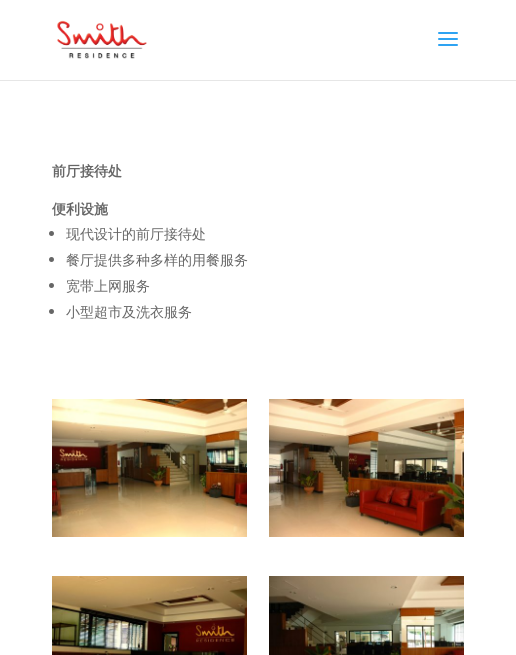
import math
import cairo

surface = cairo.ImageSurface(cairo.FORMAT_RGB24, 516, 655)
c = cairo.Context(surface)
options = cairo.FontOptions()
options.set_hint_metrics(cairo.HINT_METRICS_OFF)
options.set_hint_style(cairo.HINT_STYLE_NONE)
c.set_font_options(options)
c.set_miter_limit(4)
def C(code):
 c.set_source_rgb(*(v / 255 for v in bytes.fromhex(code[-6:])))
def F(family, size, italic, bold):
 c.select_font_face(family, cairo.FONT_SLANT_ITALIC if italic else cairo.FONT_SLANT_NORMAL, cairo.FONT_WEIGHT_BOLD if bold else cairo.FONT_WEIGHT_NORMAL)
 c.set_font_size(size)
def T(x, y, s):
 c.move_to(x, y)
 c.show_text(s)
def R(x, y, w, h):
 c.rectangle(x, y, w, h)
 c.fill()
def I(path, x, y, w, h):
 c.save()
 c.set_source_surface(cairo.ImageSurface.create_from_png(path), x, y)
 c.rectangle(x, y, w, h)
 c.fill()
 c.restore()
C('ffffff')
c.paint()
C('e6e6e6')
R(0,80,516,1)
I('1.png',57,20,90,39)
I('2.png',438,32,20,14)
F('WenQuanYi Zen Hei',14,0,1)
C('666666')
T(52,176,'前厅接待处')
T(52,214,'便利设施')
c.new_path()
c.arc(51.5,233.5,2.5,0,2 * math.pi)
c.fill()
F('WenQuanYi Zen Hei Medium',14,0,0)
T(66,239,'现代设计的前厅接待处')
c.new_path()
c.arc(51.5,259.5,2.5,0,2 * math.pi)
c.fill()
T(66,265,'餐厅提供多种多样的用餐服务')
c.new_path()
c.arc(51.5,285.5,2.5,0,2 * math.pi)
c.fill()
T(66,291,'宽带上网服务')
c.new_path()
c.arc(51.5,311.5,2.5,0,2 * math.pi)
c.fill()
T(66,317,'小型超市及洗衣服务')
I('3.png',52,399,195,138)
I('4.png',269,399,195,138)
I('5.png',52,576,195,79)
I('6.png',269,576,195,79)
surface.write_to_png('o.png')
